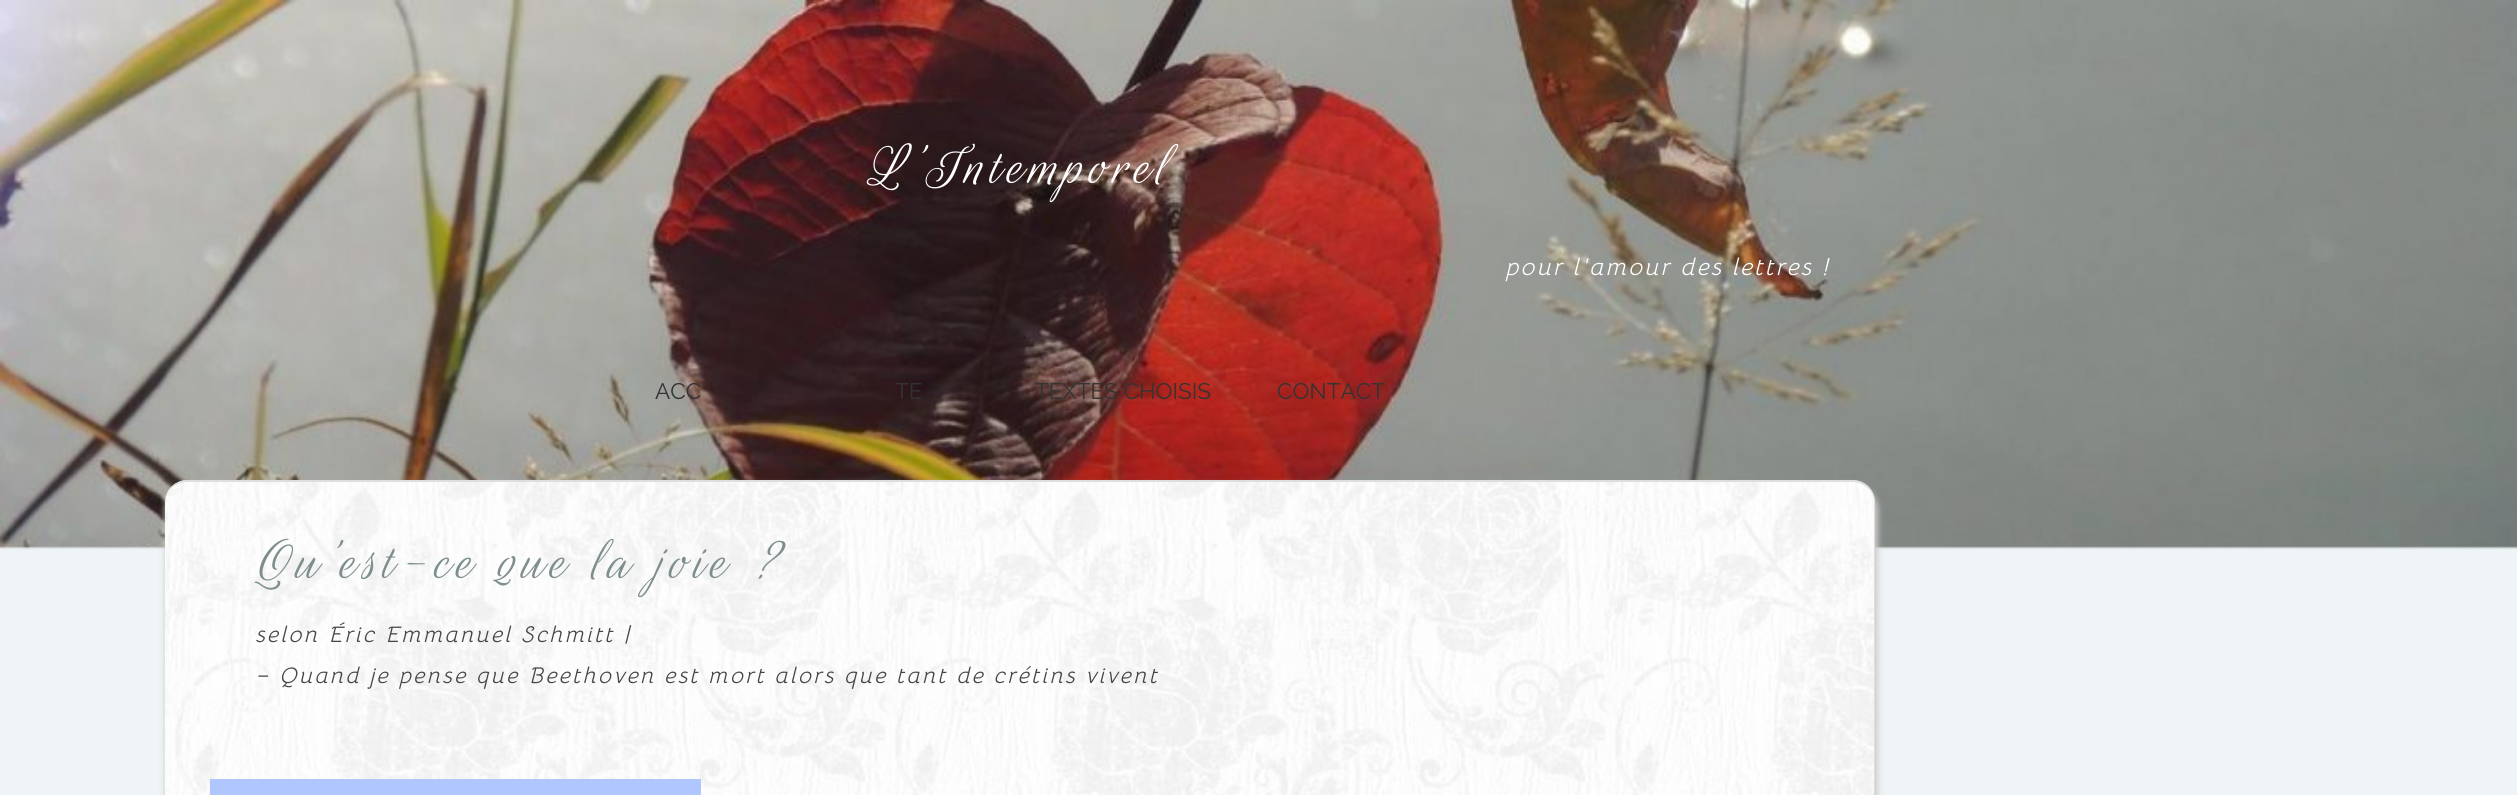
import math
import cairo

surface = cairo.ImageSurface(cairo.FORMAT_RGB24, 2517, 795)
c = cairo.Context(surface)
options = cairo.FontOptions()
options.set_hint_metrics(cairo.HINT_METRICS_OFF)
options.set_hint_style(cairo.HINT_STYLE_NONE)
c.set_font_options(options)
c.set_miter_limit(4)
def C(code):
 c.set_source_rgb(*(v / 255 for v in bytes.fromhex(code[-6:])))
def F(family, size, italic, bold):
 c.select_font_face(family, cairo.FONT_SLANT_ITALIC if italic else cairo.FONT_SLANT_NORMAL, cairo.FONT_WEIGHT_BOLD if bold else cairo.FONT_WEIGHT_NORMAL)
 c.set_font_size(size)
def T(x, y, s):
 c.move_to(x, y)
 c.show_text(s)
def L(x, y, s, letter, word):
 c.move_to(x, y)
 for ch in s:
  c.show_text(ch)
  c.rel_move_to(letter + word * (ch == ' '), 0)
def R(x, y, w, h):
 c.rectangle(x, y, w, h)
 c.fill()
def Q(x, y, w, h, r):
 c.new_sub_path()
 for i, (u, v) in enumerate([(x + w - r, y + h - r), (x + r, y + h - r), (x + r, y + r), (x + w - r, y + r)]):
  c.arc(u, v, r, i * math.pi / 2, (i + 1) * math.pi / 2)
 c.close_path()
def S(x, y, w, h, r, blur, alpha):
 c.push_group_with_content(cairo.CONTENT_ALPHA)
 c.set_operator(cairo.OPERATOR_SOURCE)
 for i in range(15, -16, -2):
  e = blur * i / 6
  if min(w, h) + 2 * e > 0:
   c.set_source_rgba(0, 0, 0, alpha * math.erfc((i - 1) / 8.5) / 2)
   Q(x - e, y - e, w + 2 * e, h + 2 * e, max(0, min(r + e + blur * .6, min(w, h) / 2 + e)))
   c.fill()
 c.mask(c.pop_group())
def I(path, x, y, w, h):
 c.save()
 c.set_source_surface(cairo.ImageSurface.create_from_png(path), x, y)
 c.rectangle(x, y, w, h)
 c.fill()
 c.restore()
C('eff4f7')
c.paint()
I('1.png',0,0,2517,550)
F('Rouge Script',60,1,0)
C('ffffff')
L(868,183,'L’Intemporel',5.4,0)
F('Bellota',24,1,0)
L(1505,275,'pour l\'amour des lettres !',2.15,0)
F('Raleway Thin',22.5,0,0)
C('333333')
T(655,399,'ACC')
T(895,399,'TE')
T(1035,399,'TEXTES CHOISIS')
T(1277,399,'CONTACT')
C('cccccc')
S(165,485,1713,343,24,3,1)
I('2.png',165,480,1710,315)
C('dedede')
c.set_fill_rule(cairo.FILL_RULE_EVEN_ODD)
c.new_path()
c.move_to(188,480)
c.line_to(1852,480)
c.curve_to(1865,480,1875,490,1875,502)
c.line_to(1875,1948)
c.curve_to(1875,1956,1869,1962,1862,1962)
c.line_to(178,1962)
c.curve_to(171,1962,165,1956,165,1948)
c.line_to(165,502)
c.curve_to(165,490,175,480,188,480)
c.close_path()
c.move_to(188,482)
c.line_to(1852,482)
c.curve_to(1864,482,1874,491,1874,502)
c.line_to(1874,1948)
c.curve_to(1874,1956,1868,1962,1862,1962)
c.line_to(178,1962)
c.curve_to(171,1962,165,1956,165,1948)
c.line_to(165,502)
c.curve_to(165,491,175,482,188,482)
c.close_path()
c.fill()
F('Rouge Script',60,1,0)
C('7e8e8e')
L(255,578,'Qu’est-ce que la joie ?',5.4,0)
F('Bellota',22.5,1,0)
C('444444')
L(255,642,'selon Éric Emmanuel Schmitt |',2.25,0)
L(255,683,'– Quand je pense que Beethoven est mort alors que tant de crétins vivent',2.25,0)
C('b0c6ff')
R(210,779,491,16)
surface.write_to_png('o.png')
